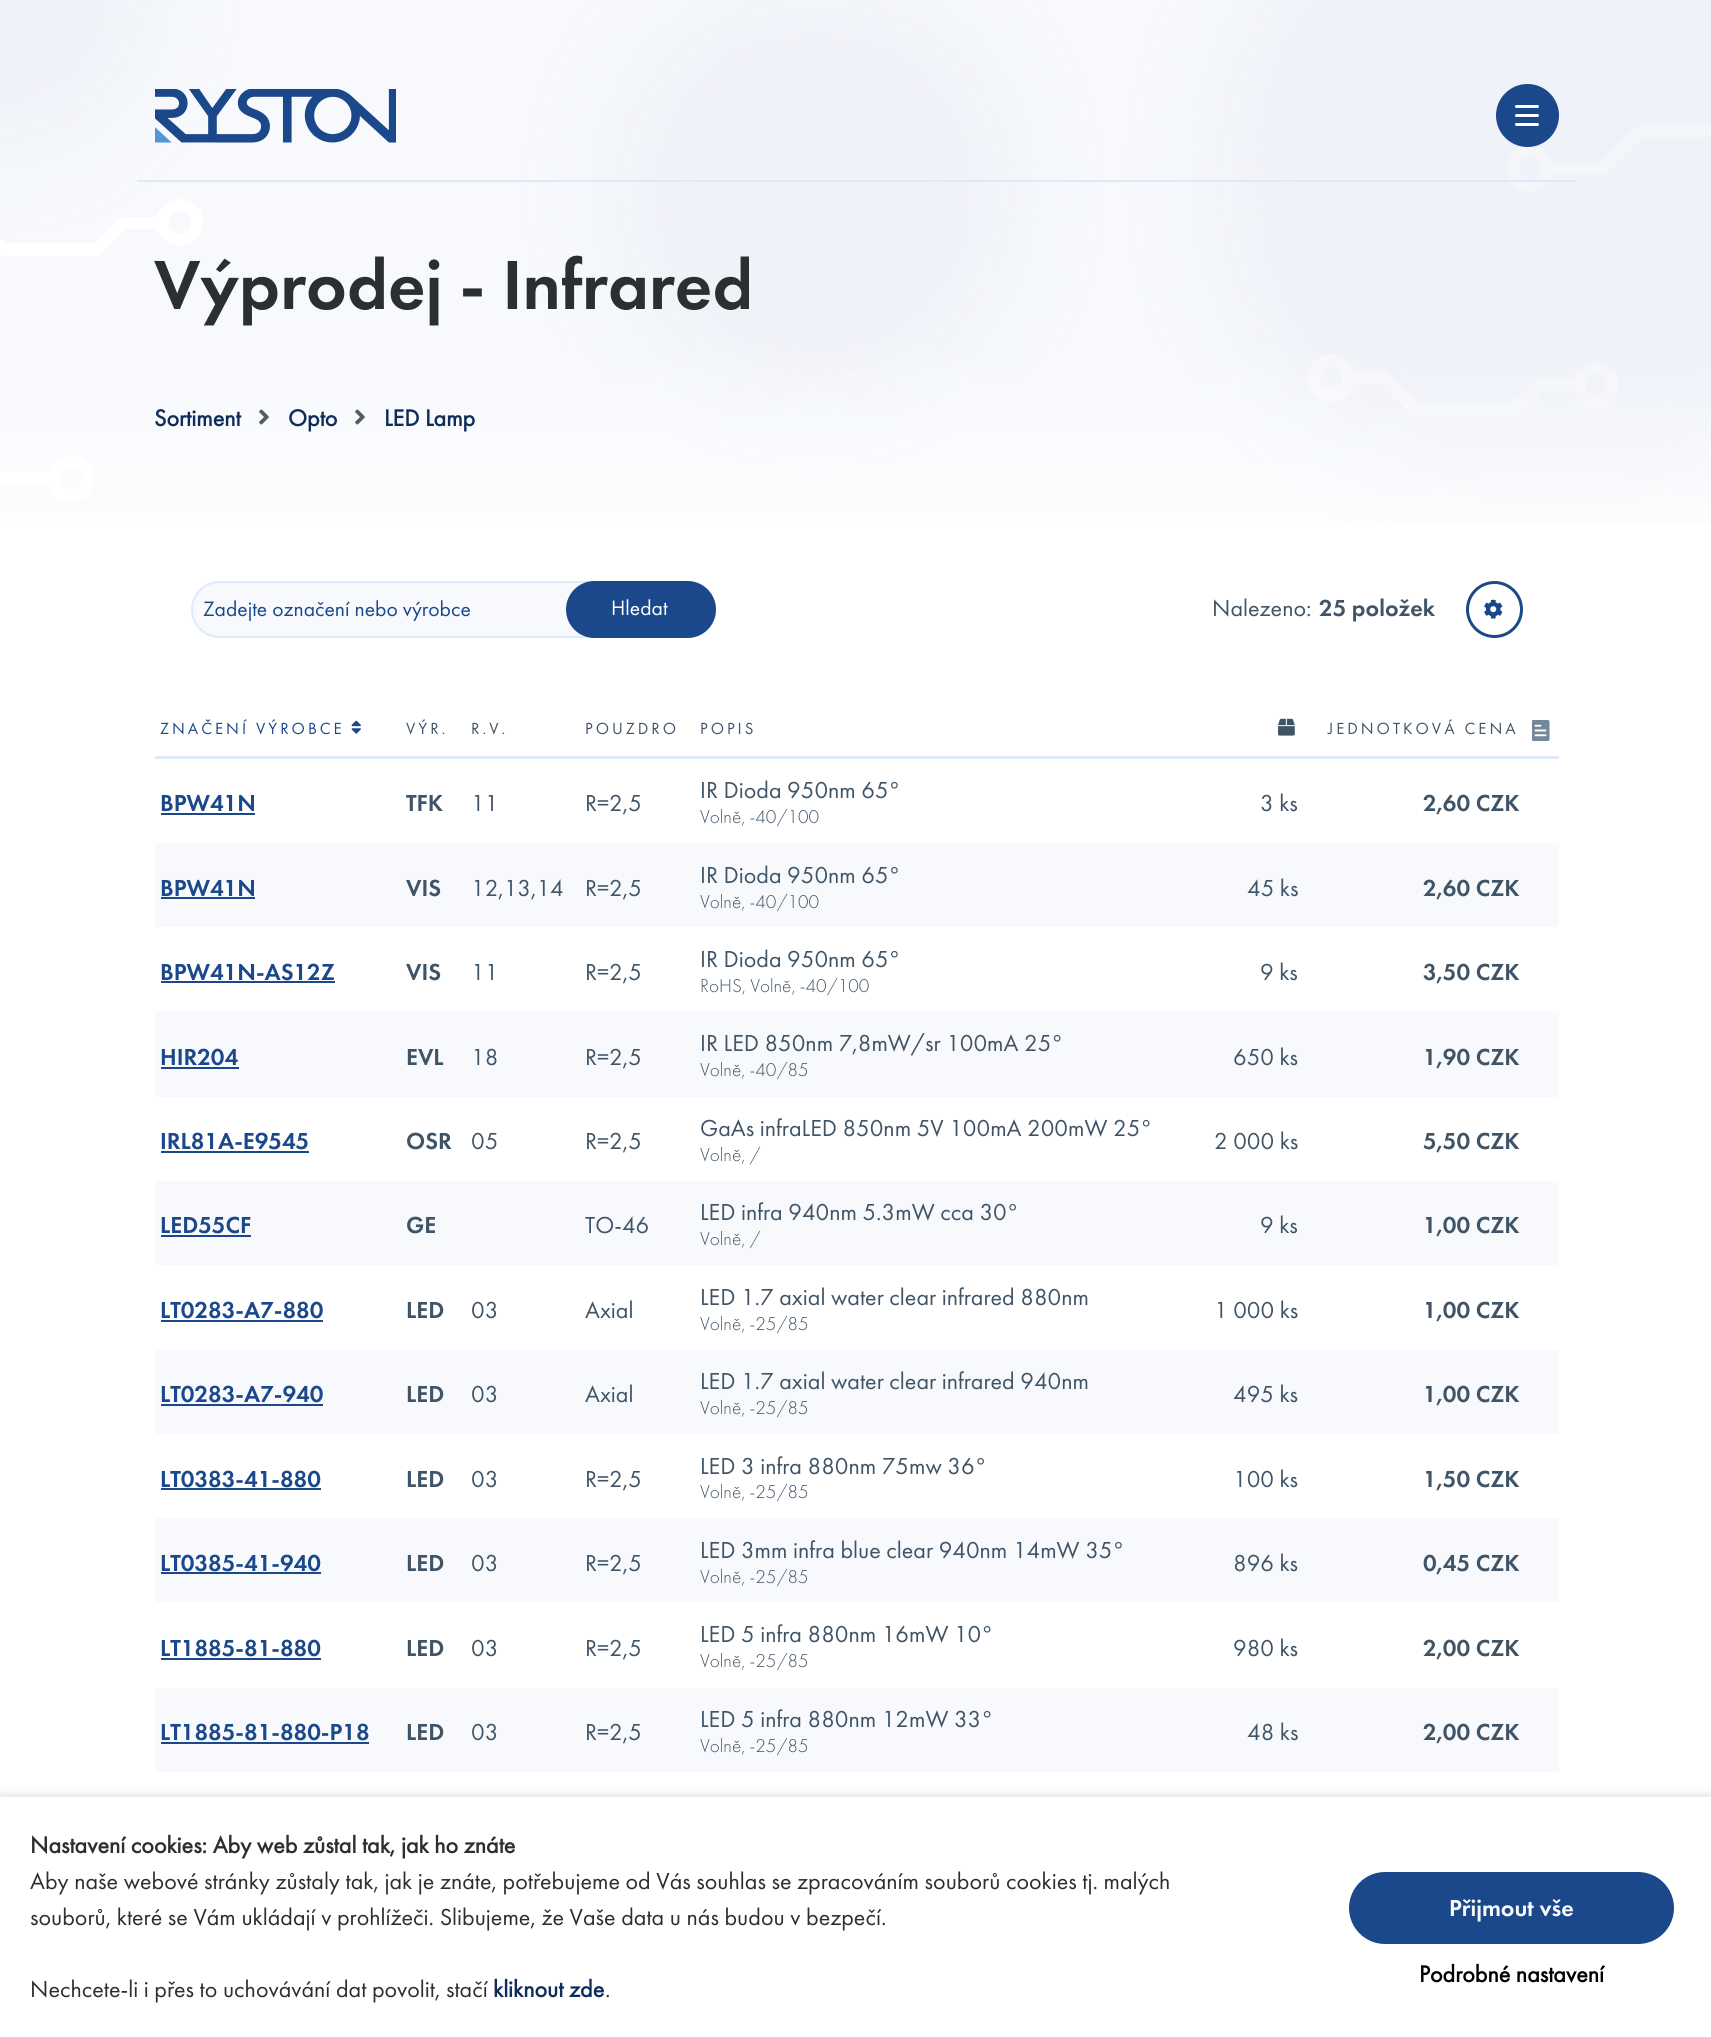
import math
import cairo

surface = cairo.ImageSurface(cairo.FORMAT_RGB24, 1711, 2037)
c = cairo.Context(surface)
options = cairo.FontOptions()
options.set_hint_metrics(cairo.HINT_METRICS_OFF)
options.set_hint_style(cairo.HINT_STYLE_NONE)
c.set_font_options(options)
c.set_miter_limit(4)
def C(code):
 c.set_source_rgb(*(v / 255 for v in bytes.fromhex(code[-6:])))
def F(family, size, italic, bold):
 c.select_font_face(family, cairo.FONT_SLANT_ITALIC if italic else cairo.FONT_SLANT_NORMAL, cairo.FONT_WEIGHT_BOLD if bold else cairo.FONT_WEIGHT_NORMAL)
 c.set_font_size(size)
def T(x, y, s):
 c.move_to(x, y)
 c.show_text(s)
def L(x, y, s, letter, word):
 c.move_to(x, y)
 for ch in s:
  c.show_text(ch)
  c.rel_move_to(letter + word * (ch == ' '), 0)
def R(x, y, w, h):
 c.rectangle(x, y, w, h)
 c.fill()
def Q(x, y, w, h, r):
 c.new_sub_path()
 for i, (u, v) in enumerate([(x + w - r, y + h - r), (x + r, y + h - r), (x + r, y + r), (x + w - r, y + r)]):
  c.arc(u, v, r, i * math.pi / 2, (i + 1) * math.pi / 2)
 c.close_path()
def S(x, y, w, h, r, blur, alpha):
 c.push_group_with_content(cairo.CONTENT_ALPHA)
 c.set_operator(cairo.OPERATOR_SOURCE)
 for i in range(15, -16, -2):
  e = blur * i / 6
  if min(w, h) + 2 * e > 0:
   c.set_source_rgba(0, 0, 0, alpha * math.erfc((i - 1) / 8.5) / 2)
   Q(x - e, y - e, w + 2 * e, h + 2 * e, max(0, min(r + e + blur * .6, min(w, h) / 2 + e)))
   c.fill()
 c.mask(c.pop_group())
def I(path, x, y, w, h):
 c.save()
 c.set_source_surface(cairo.ImageSurface.create_from_png(path), x, y)
 c.rectangle(x, y, w, h)
 c.fill()
 c.restore()
C('ffffff')
c.paint()
I('1.png',0,0,1711,522)
C('dee9fc')
R(137,180,1440,2)
I('2.png',155,89,241,54)
C('1b488a')
c.arc(1527.5,115.5,30.5,0,2 * math.pi)
c.fill_preserve()
c.stroke()
I('3.png',1515,105,24,21)
F('Futura PT Medium',72,0,0)
C('2c2f31')
T(154,309,'Výprodej - Infrared')
F('Futura PT',24,0,1)
C('0f2d5a')
T(154,426,'Sortiment')
I('4.png',259,409,10,16)
T(288,426,'Opto')
I('4.png',355,409,10,16)
T(384,426,'LED Lamp')
C('f7f9fd')
Q(192,582,523,55,27.5)
c.fill_preserve()
C('dee9fc')
c.stroke()
F('Futura PT',21.6,0,0)
C('1b488a')
T(203,616,'Zadejte označení nebo výrobce')
Q(567,582,148,55,27.5)
c.fill_preserve()
c.stroke()
C('ffffff')
T(611,615,'Hledat')
F('Futura PT',24,0,0)
C('405467')
T(1212,616,'Nalezeno:')
F('Futura PT Medium',24,0,0)
T(1319,616,'25 položek')
c.new_path()
c.arc(1494.5,609.5,27,0,2 * math.pi)
C('1b488a')
c.set_line_width(3)
c.stroke()
I('5.png',1484,599,19,20)
C('dee9fc')
R(155,756,1404,3)
F('Futura PT',16.75,0,0)
C('1b488a')
L(160,734,'ZNAČENÍ VÝROBCE',3,0)
I('6.png',351,720,10,14)
C('405467')
L(406,734,'VÝR.',3,0)
L(471,734,'R.V.',3,0)
L(585,734,'POUZDRO',3,0)
L(700,734,'POPIS',3,0)
I('7.png',1278,718,17,18)
L(1328,734,'JEDNOTKOVÁ CENA',3,0)
I('8.png',1532,720,18,21)
F('Futura PT Medium',24,0,0)
C('1b488a')
T(160,811,'BPW41N')
R(161,813,94,2)
C('405467')
T(406,811,'TFK')
F('Futura PT',24,0,0)
T(471,811,'11')
T(585,811,'R=2,5')
T(700,798,'IR Dioda 950nm 65°')
F('Futura PT Light',19.25,0,0)
T(700,823,'Volně, -40/100')
F('Futura PT',24,0,0)
T(1260,811,'3 ks')
F('Futura PT Medium',24,0,0)
T(1423,811,'2,60 CZK')
C('f7f9fd')
R(155,843,1404,84)
C('1b488a')
T(160,896,'BPW41N')
R(161,897,94,2)
C('405467')
T(406,896,'VIS')
F('Futura PT',24,0,0)
T(471,896,'12,13,14')
T(585,896,'R=2,5')
T(700,883,'IR Dioda 950nm 65°')
F('Futura PT Light',19.25,0,0)
T(700,908,'Volně, -40/100')
F('Futura PT',24,0,0)
T(1247,896,'45 ks')
F('Futura PT Medium',24,0,0)
T(1423,896,'2,60 CZK')
C('1b488a')
T(160,980,'BPW41N-AS12Z')
R(161,981,174,2)
C('405467')
T(406,980,'VIS')
F('Futura PT',24,0,0)
T(471,980,'11')
T(585,980,'R=2,5')
T(700,967,'IR Dioda 950nm 65°')
F('Futura PT Light',19.25,0,0)
T(700,992,'RoHS, Volně, -40/100')
F('Futura PT',24,0,0)
T(1260,980,'9 ks')
F('Futura PT Medium',24,0,0)
T(1423,980,'3,50 CZK')
C('f7f9fd')
R(155,1011,1404,86)
C('1b488a')
T(160,1065,'HIR204')
R(161,1067,78,2)
C('405467')
T(406,1065,'EVL')
F('Futura PT',24,0,0)
T(471,1065,'18')
T(585,1065,'R=2,5')
T(700,1051,'IR LED 850nm 7,8mW/sr 100mA 25°')
F('Futura PT Light',19.25,0,0)
T(700,1076,'Volně, -40/85')
F('Futura PT',24,0,0)
T(1233,1065,'650 ks')
F('Futura PT Medium',24,0,0)
T(1423,1065,'1,90 CZK')
C('1b488a')
T(160,1149,'IRL81A-E9545')
R(161,1151,148,2)
C('405467')
T(406,1149,'OSR')
F('Futura PT',24,0,0)
T(471,1149,'05')
T(585,1149,'R=2,5')
T(700,1136,'GaAs infraLED 850nm 5V 100mA 200mW 25°')
F('Futura PT Light',19.25,0,0)
T(700,1161,'Volně, /')
F('Futura PT',24,0,0)
T(1214,1149,'2 000 ks')
F('Futura PT Medium',24,0,0)
T(1423,1149,'5,50 CZK')
C('f7f9fd')
R(155,1181,1404,84)
C('1b488a')
T(160,1233,'LED55CF')
R(161,1235,90,2)
C('405467')
T(406,1233,'GE')
F('Futura PT',24,0,0)
T(585,1233,'TO-46')
T(700,1220,'LED infra 940nm 5.3mW cca 30°')
F('Futura PT Light',19.25,0,0)
T(700,1245,'Volně, /')
F('Futura PT',24,0,0)
T(1260,1233,'9 ks')
F('Futura PT Medium',24,0,0)
T(1423,1233,'1,00 CZK')
C('1b488a')
T(160,1318,'LT0283-A7-880')
R(161,1320,162,2)
C('405467')
T(406,1318,'LED')
F('Futura PT',24,0,0)
T(471,1318,'03')
T(585,1318,'Axial')
T(700,1305,'LED 1.7 axial water clear infrared 880nm')
F('Futura PT Light',19.25,0,0)
T(700,1330,'Volně, -25/85')
F('Futura PT',24,0,0)
T(1214,1318,'1 000 ks')
F('Futura PT Medium',24,0,0)
T(1423,1318,'1,00 CZK')
C('f7f9fd')
R(155,1350,1404,84)
C('1b488a')
T(160,1402,'LT0283-A7-940')
R(161,1404,162,2)
C('405467')
T(406,1402,'LED')
F('Futura PT',24,0,0)
T(471,1402,'03')
T(585,1402,'Axial')
T(700,1389,'LED 1.7 axial water clear infrared 940nm')
F('Futura PT Light',19.25,0,0)
T(700,1414,'Volně, -25/85')
F('Futura PT',24,0,0)
T(1233,1402,'495 ks')
F('Futura PT Medium',24,0,0)
T(1423,1402,'1,00 CZK')
C('1b488a')
T(160,1487,'LT0383-41-880')
R(161,1488,160,2)
C('405467')
T(406,1487,'LED')
F('Futura PT',24,0,0)
T(471,1487,'03')
T(585,1487,'R=2,5')
T(700,1474,'LED 3 infra 880nm 75mw 36°')
F('Futura PT Light',19.25,0,0)
T(700,1498,'Volně, -25/85')
F('Futura PT',24,0,0)
T(1233,1487,'100 ks')
F('Futura PT Medium',24,0,0)
T(1423,1487,'1,50 CZK')
C('f7f9fd')
R(155,1518,1404,84)
C('1b488a')
T(160,1571,'LT0385-41-940')
R(161,1572,160,2)
C('405467')
T(406,1571,'LED')
F('Futura PT',24,0,0)
T(471,1571,'03')
T(585,1571,'R=2,5')
T(700,1558,'LED 3mm infra blue clear 940nm 14mW 35°')
F('Futura PT Light',19.25,0,0)
T(700,1583,'Volně, -25/85')
F('Futura PT',24,0,0)
T(1233,1571,'896 ks')
F('Futura PT Medium',24,0,0)
T(1423,1571,'0,45 CZK')
C('1b488a')
T(160,1656,'LT1885-81-880')
R(161,1658,160,2)
C('405467')
T(406,1656,'LED')
F('Futura PT',24,0,0)
T(471,1656,'03')
T(585,1656,'R=2,5')
T(700,1642,'LED 5 infra 880nm 16mW 10°')
F('Futura PT Light',19.25,0,0)
T(700,1667,'Volně, -25/85')
F('Futura PT',24,0,0)
T(1233,1656,'980 ks')
F('Futura PT Medium',24,0,0)
T(1423,1656,'2,00 CZK')
C('f7f9fd')
R(155,1688,1404,84)
C('1b488a')
T(160,1740,'LT1885-81-880-P18')
R(161,1742,208,2)
C('405467')
T(406,1740,'LED')
F('Futura PT',24,0,0)
T(471,1740,'03')
T(585,1740,'R=2,5')
T(700,1727,'LED 5 infra 880nm 12mW 33°')
F('Futura PT Light',19.25,0,0)
T(700,1752,'Volně, -25/85')
F('Futura PT',24,0,0)
T(1247,1740,'48 ks')
F('Futura PT Medium',24,0,0)
T(1423,1740,'2,00 CZK')
C('000000')
S(0,1794,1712,240,0,4,.1)
C('ffffff')
R(0,1797,1711,240)
F('Futura PT',24,0,1)
C('2c2f31')
T(30,1853,'Nastavení cookies: Aby web zůstal tak, jak ho znáte')
F('Futura PT',24,0,0)
T(30,1889,'Aby naše webové stránky zůstaly tak, jak je znáte, potřebujeme od Vás souhlas se zpracováním souborů cookies tj. malých')
T(30,1925,'souborů, které se Vám ukládají v prohlížeči. Slibujeme, že Vaše data u nás budou v bezpečí.')
T(30,1997,'Nechcete-li i přes to uchovávání dat povolit, stačí')
F('Futura PT',24,0,1)
C('0f2d5a')
T(493,1997,'kliknout zde')
F('Futura PT',24,0,0)
C('2c2f31')
T(605,1997,'.')
C('1b488a')
Q(1349,1872,325,72,36)
c.fill()
F('Futura PT Medium',24,0,0)
C('f7f9fd')
T(1449,1916,'Přijmout vše')
F('Futura PT',24,0,1)
C('000000')
T(1419,1982,'Podrobné nastavení')
surface.write_to_png('o.png')
